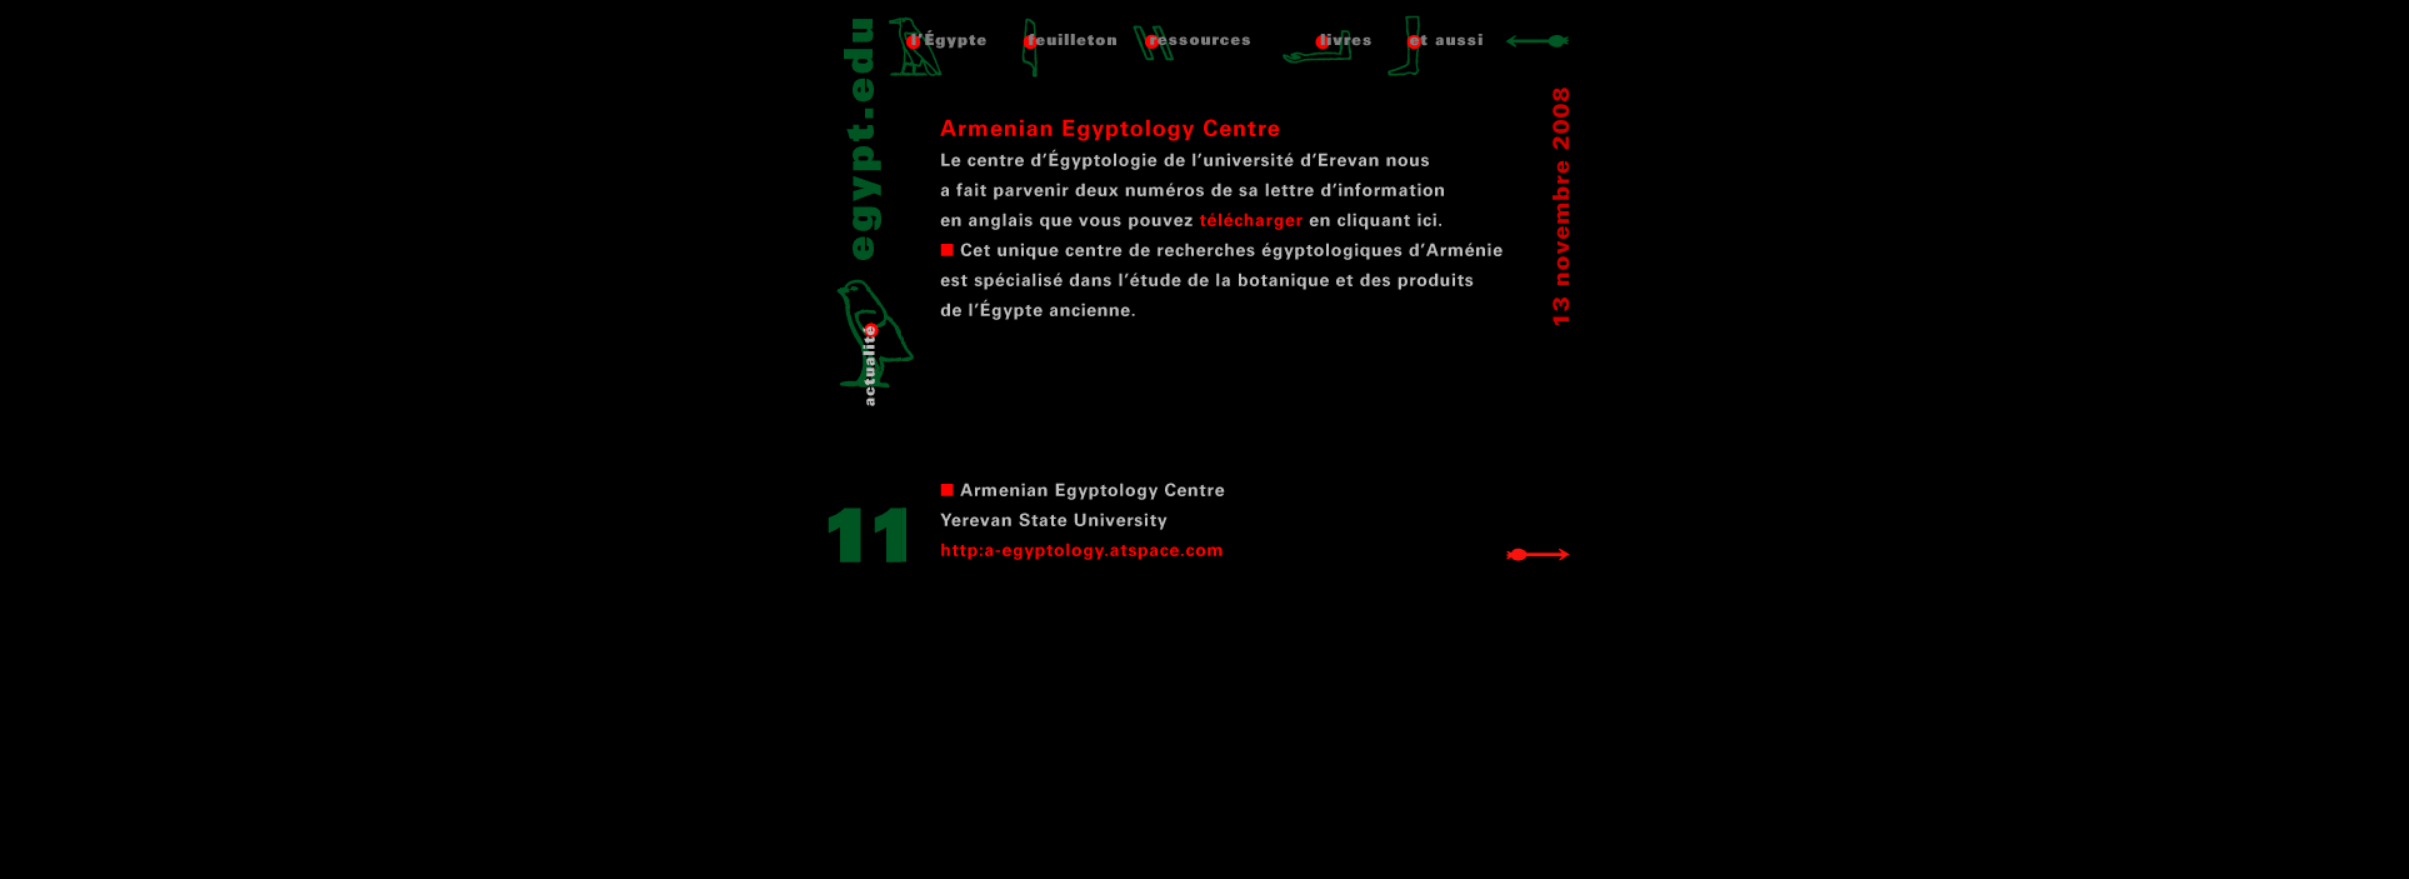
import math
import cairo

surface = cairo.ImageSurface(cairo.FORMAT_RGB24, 2409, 879)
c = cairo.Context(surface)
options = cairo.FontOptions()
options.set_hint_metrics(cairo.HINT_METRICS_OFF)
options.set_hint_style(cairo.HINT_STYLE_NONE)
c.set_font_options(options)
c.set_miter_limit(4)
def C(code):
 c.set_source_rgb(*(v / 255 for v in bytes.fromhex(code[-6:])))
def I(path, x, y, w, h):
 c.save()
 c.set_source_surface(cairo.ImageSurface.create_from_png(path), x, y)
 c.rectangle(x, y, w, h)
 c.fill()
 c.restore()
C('000000')
c.paint()
I('1.png',843,17,59,60)
I('2.png',901,15,668,63)
I('3.png',827,77,75,486)
I('4.png',901,77,670,486)
surface.write_to_png('o.png')
